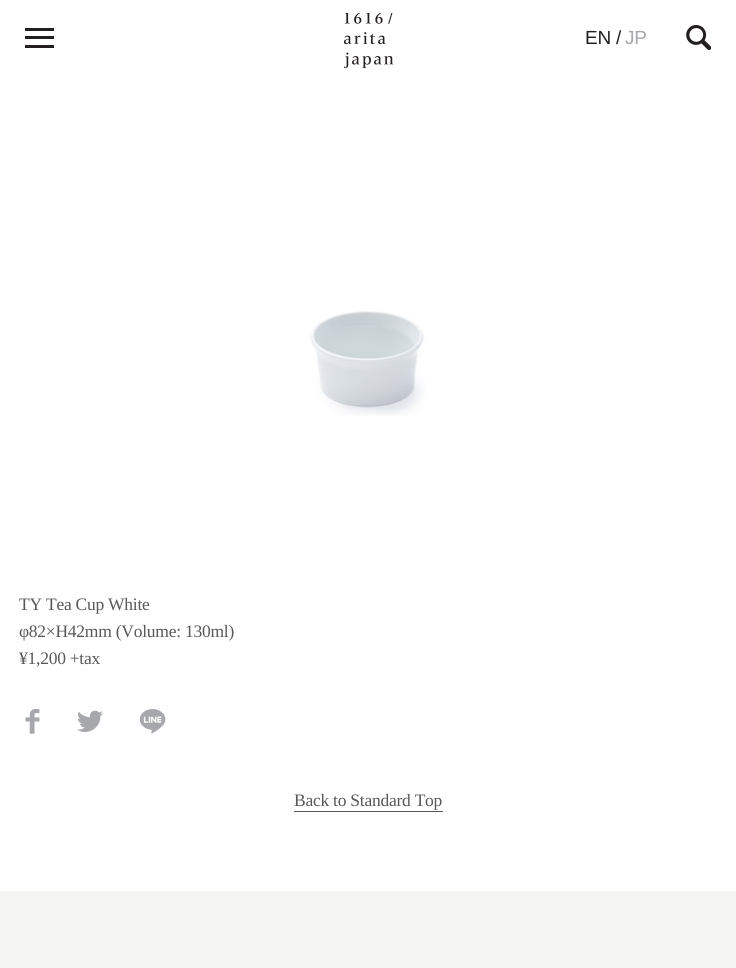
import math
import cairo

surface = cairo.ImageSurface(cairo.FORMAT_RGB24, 736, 968)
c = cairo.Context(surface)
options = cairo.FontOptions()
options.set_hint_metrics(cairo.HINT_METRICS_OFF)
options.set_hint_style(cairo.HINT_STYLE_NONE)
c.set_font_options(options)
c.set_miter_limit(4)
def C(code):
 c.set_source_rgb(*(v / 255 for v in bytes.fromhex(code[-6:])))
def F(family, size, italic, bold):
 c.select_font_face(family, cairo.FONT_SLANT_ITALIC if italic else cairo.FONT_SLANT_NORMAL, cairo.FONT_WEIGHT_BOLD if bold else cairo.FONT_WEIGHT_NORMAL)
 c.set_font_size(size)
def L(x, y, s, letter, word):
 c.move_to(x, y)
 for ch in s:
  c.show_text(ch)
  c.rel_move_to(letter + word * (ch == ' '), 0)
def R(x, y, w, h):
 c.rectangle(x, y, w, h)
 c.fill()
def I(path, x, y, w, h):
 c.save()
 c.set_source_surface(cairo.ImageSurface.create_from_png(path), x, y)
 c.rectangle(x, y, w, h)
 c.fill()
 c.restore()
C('ffffff')
c.paint()
C('231f20')
R(25,36,29,3)
R(25,28,29,3)
R(25,45,29,3)
I('1.png',344,13,50,55)
F('Liberation Sans',19,0,0)
L(585,44,'EN /',-.25,0)
C('a6a8ab')
L(625,44,'JP',-.25,0)
I('2.png',686,25,25,25)
I('3.png',310,311,115,105)
F('Liberation Serif',17.5,0,0)
C('595757')
L(19,610,'TY Tea Cup White',-.25,0)
L(19,637,'φ82×H42mm (Volume: 130ml)',-.25,0)
L(19,664,'¥1,200 +tax',-.25,0)
I('4.png',25,709,15,25)
I('5.png',77,710,26,22)
I('6.png',139,709,27,25)
L(294,806,'Back to Standard Top',-.25,0)
R(294,811,149,1)
C('f5f5f3')
R(0,891,736,77)
surface.write_to_png('o.png')
